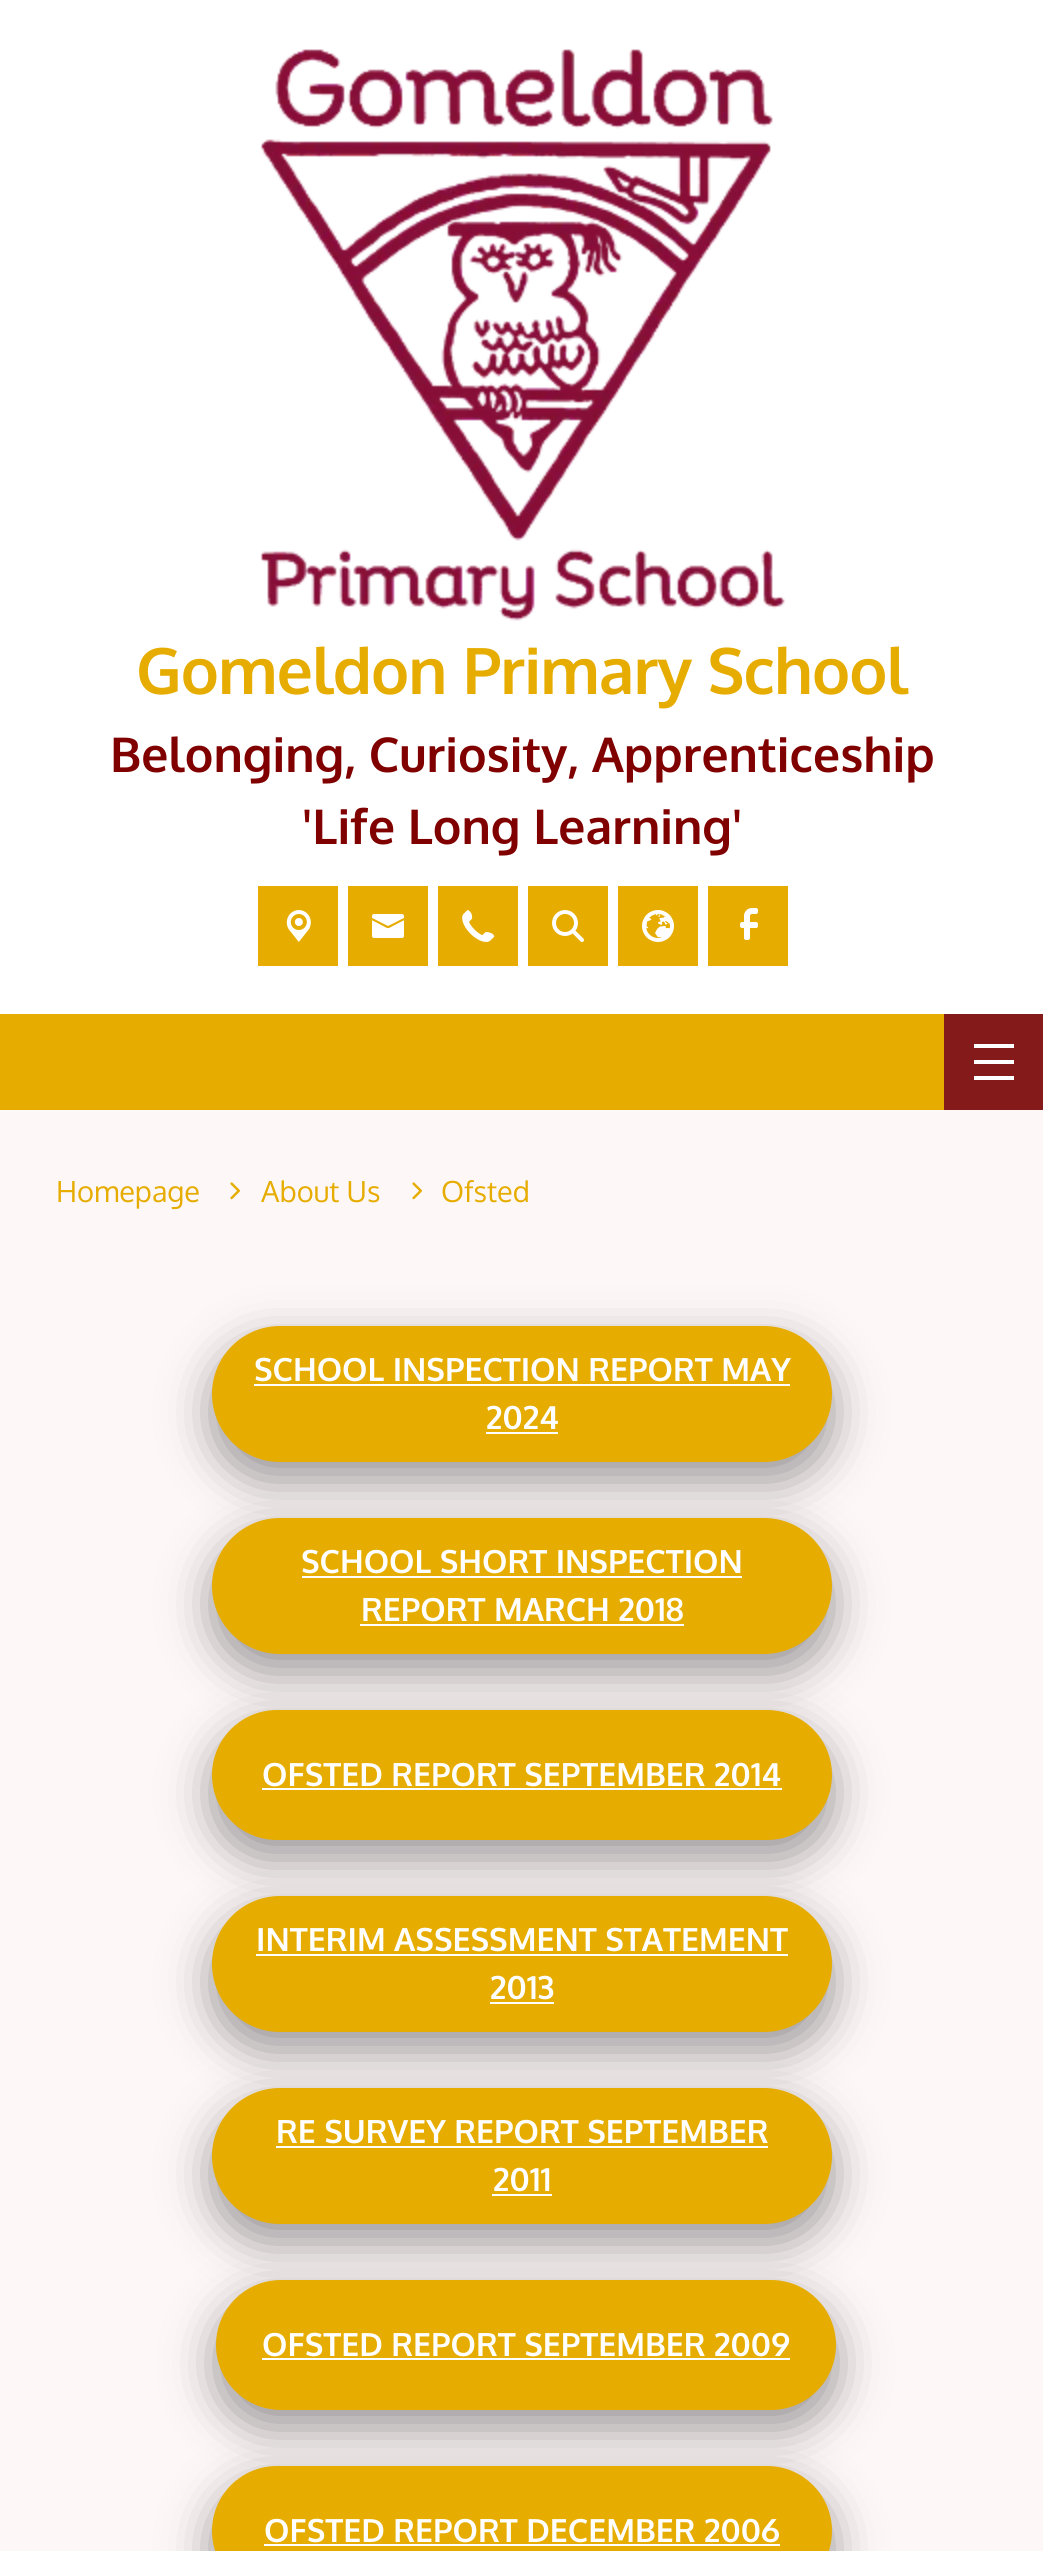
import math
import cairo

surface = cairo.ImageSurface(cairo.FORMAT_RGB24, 1043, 2551)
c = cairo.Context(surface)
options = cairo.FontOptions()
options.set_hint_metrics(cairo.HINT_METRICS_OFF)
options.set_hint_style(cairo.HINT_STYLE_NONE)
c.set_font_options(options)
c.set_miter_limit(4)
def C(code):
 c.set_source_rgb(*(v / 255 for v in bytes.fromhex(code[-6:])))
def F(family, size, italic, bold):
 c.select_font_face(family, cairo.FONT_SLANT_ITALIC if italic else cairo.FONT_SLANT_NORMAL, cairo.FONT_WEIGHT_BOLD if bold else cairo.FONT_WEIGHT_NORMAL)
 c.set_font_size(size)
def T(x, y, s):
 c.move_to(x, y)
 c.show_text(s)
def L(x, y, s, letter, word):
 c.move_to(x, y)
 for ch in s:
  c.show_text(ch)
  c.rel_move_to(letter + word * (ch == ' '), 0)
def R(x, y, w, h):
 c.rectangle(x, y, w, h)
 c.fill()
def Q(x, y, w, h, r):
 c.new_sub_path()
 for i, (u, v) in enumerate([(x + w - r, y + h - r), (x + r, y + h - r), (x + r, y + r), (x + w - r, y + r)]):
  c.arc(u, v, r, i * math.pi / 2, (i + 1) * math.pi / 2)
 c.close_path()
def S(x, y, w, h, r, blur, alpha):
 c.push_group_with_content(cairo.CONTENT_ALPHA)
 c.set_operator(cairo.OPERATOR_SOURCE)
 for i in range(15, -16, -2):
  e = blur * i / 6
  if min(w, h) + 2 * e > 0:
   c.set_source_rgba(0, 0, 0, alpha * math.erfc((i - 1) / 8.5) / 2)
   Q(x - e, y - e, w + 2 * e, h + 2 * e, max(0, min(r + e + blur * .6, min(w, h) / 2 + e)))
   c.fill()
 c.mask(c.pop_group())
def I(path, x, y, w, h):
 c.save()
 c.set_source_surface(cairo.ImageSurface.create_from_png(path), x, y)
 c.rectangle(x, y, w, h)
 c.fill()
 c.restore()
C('fef7f8')
c.paint()
C('ffffff')
R(0,0,1043,1014)
I('1.png',260,49,525,572)
F('Oxygen',64,0,1)
C('e6ac00')
L(136,694,'Gomeldon Primary School',-1,0)
F('Oxygen',48,0,1)
C('800000')
T(110,772,'Belonging, Curiosity, Apprenticeship')
T(302,844,'\'Life Long Learning\'')
C('e6ac00')
R(258,886,80,80)
I('2.png',286,910,25,32)
R(348,886,80,80)
I('3.png',372,914,32,24)
R(438,886,80,80)
I('4.png',462,910,33,32)
R(528,886,80,80)
I('5.png',552,910,32,32)
R(618,886,80,80)
I('6.png',642,910,32,32)
R(708,886,80,80)
I('7.png',740,908,18,32)
R(0,1014,944,96)
C('841a1a')
R(944,1014,99,96)
C('ffffff')
R(974,1044,40,4)
R(974,1060,40,4)
R(974,1076,40,4)
F('Oxygen',29,0,0)
C('e6ac00')
T(56,1202,'Homepage')
I('8.png',230,1182,10,18)
T(261,1202,'About Us')
I('8.png',412,1182,10,18)
T(441,1202,'Ofsted')
C('000000')
S(212,1344,620,136,68,24,.4)
C('e6ac00')
Q(212,1326,620,136,68)
c.fill()
F('Oxygen',32,0,1)
C('ffffff')
T(254,1381,'SCHOOL INSPECTION REPORT MAY')
R(254,1384,536,2)
T(486,1429,'2024')
R(486,1432,72,2)
C('000000')
S(212,1536,620,136,68,24,.4)
C('e6ac00')
Q(212,1518,620,136,68)
c.fill()
C('ffffff')
T(301,1573,'SCHOOL SHORT INSPECTION')
R(302,1576,440,2)
T(361,1621,'REPORT MARCH 2018')
R(360,1624,324,2)
C('000000')
S(212,1728,620,130,65,24,.4)
C('e6ac00')
Q(212,1710,620,130,65)
c.fill()
C('ffffff')
T(262,1786,'OFSTED REPORT SEPTEMBER 2014')
R(262,1788,520,2)
C('000000')
S(212,1914,620,136,68,24,.4)
C('e6ac00')
Q(212,1896,620,136,68)
c.fill()
C('ffffff')
T(256,1951,'INTERIM ASSESSMENT STATEMENT')
R(256,1954,532,2)
T(490,1999,'2013')
R(490,2002,64,2)
C('000000')
S(212,2106,620,136,68,24,.4)
C('e6ac00')
Q(212,2088,620,136,68)
c.fill()
C('ffffff')
T(276,2143,'RE SURVEY REPORT SEPTEMBER')
R(276,2146,492,2)
T(493,2191,'2011')
R(492,2194,60,2)
C('000000')
S(216,2298,620,130,65,24,.4)
C('e6ac00')
Q(216,2280,620,130,65)
c.fill()
C('ffffff')
T(262,2356,'OFSTED REPORT SEPTEMBER 2009')
R(262,2358,528,2)
C('000000')
S(212,2484,620,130,65,24,.4)
C('e6ac00')
Q(212,2466,620,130,65)
c.fill()
C('ffffff')
T(264,2542,'OFSTED REPORT DECEMBER 2006')
R(264,2544,516,2)
surface.write_to_png('o.png')
